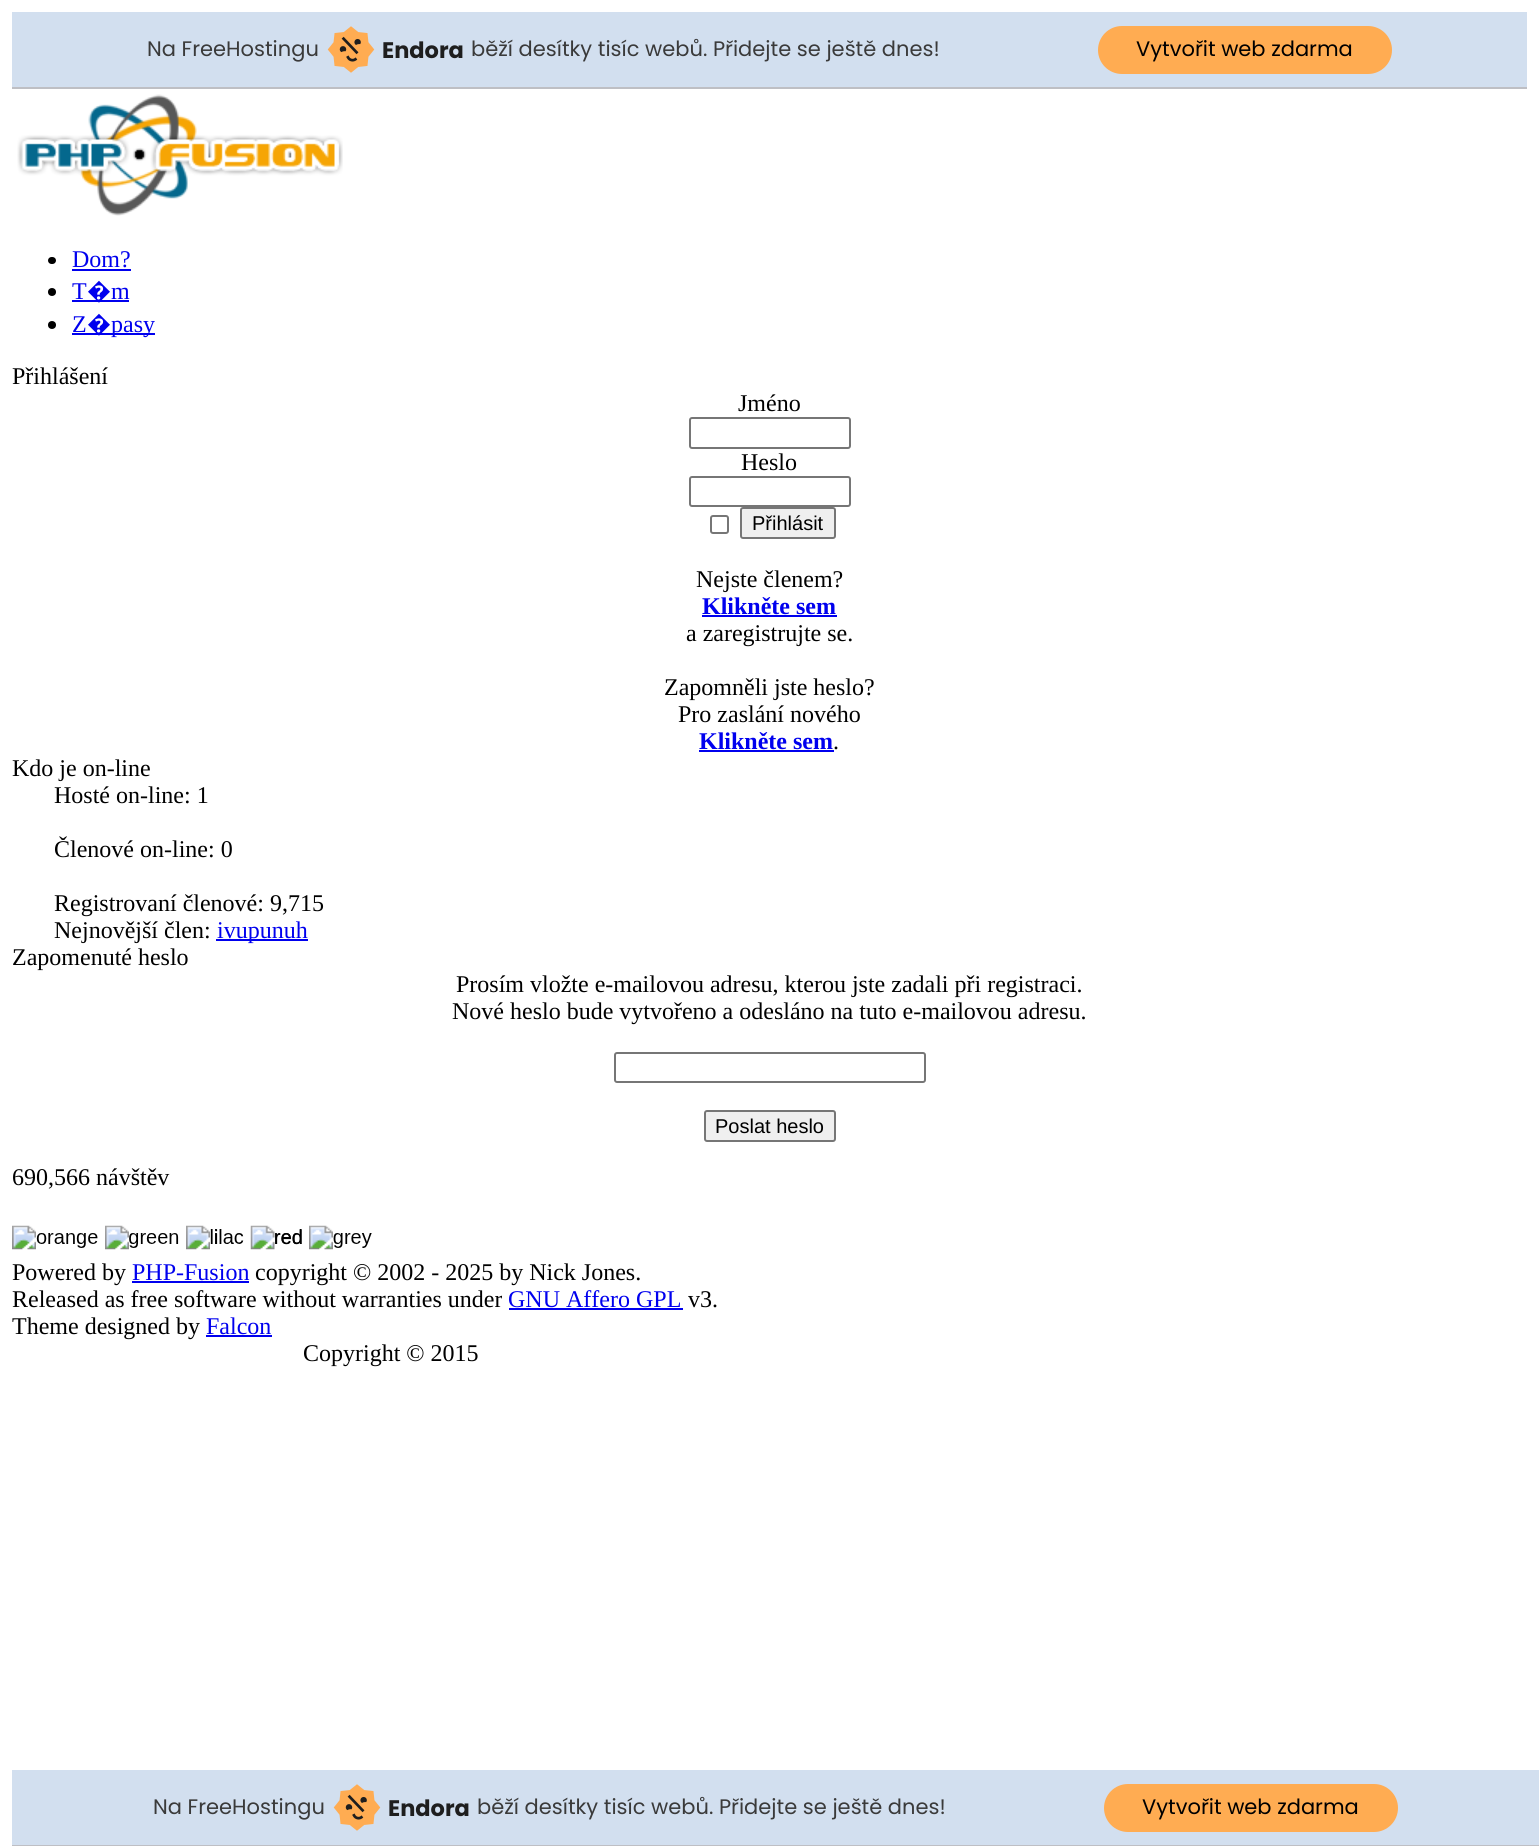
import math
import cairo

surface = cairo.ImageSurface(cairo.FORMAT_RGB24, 1539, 1846)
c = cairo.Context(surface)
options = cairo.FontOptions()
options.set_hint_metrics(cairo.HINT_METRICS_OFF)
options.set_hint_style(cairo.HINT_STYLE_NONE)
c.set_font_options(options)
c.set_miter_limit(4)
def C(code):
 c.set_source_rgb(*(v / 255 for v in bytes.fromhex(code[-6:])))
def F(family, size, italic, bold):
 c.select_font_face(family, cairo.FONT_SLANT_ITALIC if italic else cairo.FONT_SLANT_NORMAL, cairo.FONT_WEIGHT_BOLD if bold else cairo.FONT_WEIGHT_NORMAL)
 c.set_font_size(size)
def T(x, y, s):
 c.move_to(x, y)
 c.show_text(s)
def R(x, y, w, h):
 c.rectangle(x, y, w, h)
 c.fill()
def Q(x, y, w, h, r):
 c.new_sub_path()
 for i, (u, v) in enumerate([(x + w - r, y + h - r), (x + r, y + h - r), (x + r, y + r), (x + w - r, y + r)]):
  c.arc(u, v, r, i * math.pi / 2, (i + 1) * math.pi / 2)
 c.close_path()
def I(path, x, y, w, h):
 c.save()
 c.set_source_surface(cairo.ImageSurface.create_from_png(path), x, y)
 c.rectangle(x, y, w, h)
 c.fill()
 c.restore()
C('ffffff')
c.paint()
C('d2dfef')
R(12,12,1515,75)
C('bebfc4')
R(12,87,1515,2)
F('Poppins',21,0,0)
C('3a3a3a')
T(147,56,'Na FreeHostingu')
I('1.png',327,26,48,47)
F('Poppins',22.5,0,1)
C('1e1e1e')
T(382,58,'Endora')
F('Poppins',21,0,0)
C('3a3a3a')
T(471,56,'běží desítky tisíc webů. Přidejte se ještě dnes!')
C('ffac52')
Q(1098,26,294,48,24)
c.fill()
C('000000')
T(1136,56,'Vytvořit web zdarma')
I('2.png',17,94,326,122)
Q(48,257,8,7,3.5)
c.fill()
F('Liberation Serif',24,0,0)
C('0000ee')
T(72,267,'Dom?')
R(72,269,59,2)
C('000000')
c.new_path()
c.arc(52,292,4,0,2 * math.pi)
c.fill()
C('0000ee')
T(72,299,'T')
R(72,300,57,2)
F('Noto Sans',24,0,0)
T(87,299,'�')
F('Liberation Serif',24,0,0)
T(111,299,'m')
C('000000')
c.new_path()
c.arc(52,325,4,0,2 * math.pi)
c.fill()
C('0000ee')
T(72,332,'Z')
R(72,333,83,2)
F('Noto Sans',24,0,0)
T(87,332,'�')
F('Liberation Serif',24,0,0)
T(111,332,'pasy')
C('000000')
T(12,384,'Přihlášení')
T(738,411,'Jméno')
Q(690,418,160,30,2)
C('767676')
c.stroke()
C('000000')
T(741,470,'Heslo')
Q(690,477,160,29,2)
C('767676')
c.stroke()
Q(711,516,17,17,2)
c.stroke()
C('efefef')
Q(741,508,94,30,2)
c.fill_preserve()
C('767676')
c.stroke()
F('Liberation Sans',20,0,0)
C('000000')
T(752,530,'Přihlásit')
F('Liberation Serif',24,0,0)
T(696,587,'Nejste členem?')
F('Liberation Serif',24,0,1)
C('0000ee')
T(702,614,'Klikněte sem')
R(702,615,135,2)
F('Liberation Serif',24,0,0)
C('000000')
T(686,641,'a zaregistrujte se.')
T(664,695,'Zapomněli jste heslo?')
T(678,722,'Pro zaslání nového')
F('Liberation Serif',24,0,1)
C('0000ee')
T(699,749,'Klikněte sem')
R(699,750,135,2)
F('Liberation Serif',24,0,0)
C('000000')
T(833,749,'.')
T(12,776,'Kdo je on-line')
T(54,803,'Hosté on-line: 1')
T(54,857,'Členové on-line: 0')
T(54,911,'Registrovaní členové: 9,715')
T(54,938,'Nejnovější člen:')
C('0000ee')
R(216,939,92,2)
T(217,938,'ivupunuh')
C('000000')
T(12,965,'Zapomenuté heslo')
T(456,992,'Prosím vložte e-mailovou adresu, kterou jste zadali při registraci.')
T(452,1019,'Nové heslo bude vytvořeno a odesláno na tuto e-mailovou adresu.')
Q(615,1053,310,29,2)
C('767676')
c.stroke()
C('efefef')
Q(705,1111,130,30,2)
c.fill_preserve()
C('767676')
c.stroke()
F('Liberation Sans',20,0,0)
C('000000')
T(715,1133,'Poslat heslo')
F('Liberation Serif',24,0,0)
T(12,1185,'690,566 návštěv')
I('3.png',12,1225,86,25)
I('4.png',105,1225,74,25)
I('5.png',186,1225,58,25)
F('Liberation Sans',20,0,0)
T(214,1244,'i')
I('6.png',250,1225,52,25)
T(274,1244,'red')
I('7.png',309,1225,63,25)
F('Liberation Serif',24,0,0)
T(12,1280,'Powered by')
C('0000ee')
T(132,1280,'PHP-Fusion')
R(132,1281,117,2)
C('000000')
T(255,1280,'copyright © 2002 - 2025 by Nick Jones.')
T(12,1307,'Released as free software without warranties under')
C('0000ee')
T(508,1307,'GNU Affero GPL')
R(509,1308,174,2)
C('000000')
T(688,1307,'v3.')
T(12,1334,'Theme designed by')
C('0000ee')
T(206,1334,'Falcon')
R(206,1335,66,2)
C('000000')
T(303,1361,'Copyright © 2015')
C('d2dfef')
R(12,1770,1527,75)
C('bebfc4')
R(12,1845,1527,1)
F('Poppins',21,0,0)
C('3a3a3a')
T(153,1814,'Na FreeHostingu')
I('1.png',333,1784,48,47)
F('Poppins',22.5,0,1)
C('1e1e1e')
T(388,1816,'Endora')
F('Poppins',21,0,0)
C('3a3a3a')
T(477,1814,'běží desítky tisíc webů. Přidejte se ještě dnes!')
C('ffac52')
Q(1104,1784,294,48,24)
c.fill()
C('000000')
T(1142,1814,'Vytvořit web zdarma')
surface.write_to_png('o.png')
